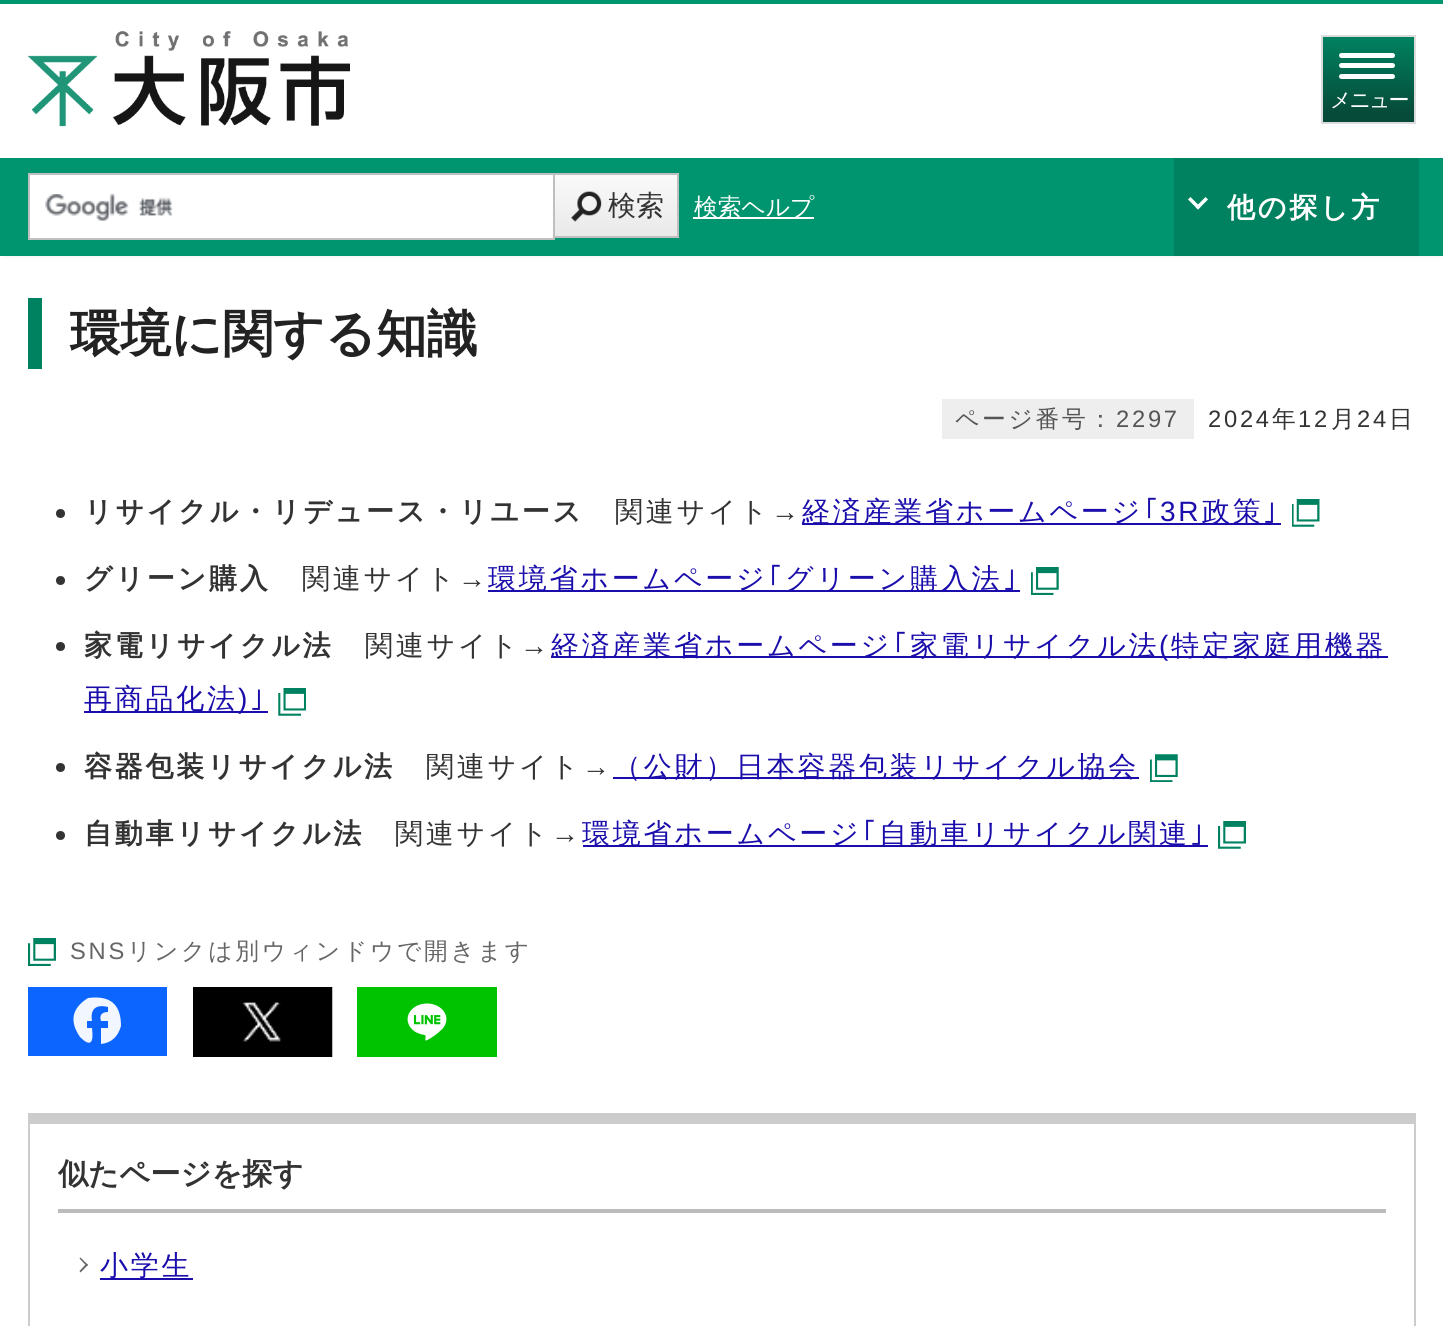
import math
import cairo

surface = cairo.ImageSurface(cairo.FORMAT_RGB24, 1443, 1326)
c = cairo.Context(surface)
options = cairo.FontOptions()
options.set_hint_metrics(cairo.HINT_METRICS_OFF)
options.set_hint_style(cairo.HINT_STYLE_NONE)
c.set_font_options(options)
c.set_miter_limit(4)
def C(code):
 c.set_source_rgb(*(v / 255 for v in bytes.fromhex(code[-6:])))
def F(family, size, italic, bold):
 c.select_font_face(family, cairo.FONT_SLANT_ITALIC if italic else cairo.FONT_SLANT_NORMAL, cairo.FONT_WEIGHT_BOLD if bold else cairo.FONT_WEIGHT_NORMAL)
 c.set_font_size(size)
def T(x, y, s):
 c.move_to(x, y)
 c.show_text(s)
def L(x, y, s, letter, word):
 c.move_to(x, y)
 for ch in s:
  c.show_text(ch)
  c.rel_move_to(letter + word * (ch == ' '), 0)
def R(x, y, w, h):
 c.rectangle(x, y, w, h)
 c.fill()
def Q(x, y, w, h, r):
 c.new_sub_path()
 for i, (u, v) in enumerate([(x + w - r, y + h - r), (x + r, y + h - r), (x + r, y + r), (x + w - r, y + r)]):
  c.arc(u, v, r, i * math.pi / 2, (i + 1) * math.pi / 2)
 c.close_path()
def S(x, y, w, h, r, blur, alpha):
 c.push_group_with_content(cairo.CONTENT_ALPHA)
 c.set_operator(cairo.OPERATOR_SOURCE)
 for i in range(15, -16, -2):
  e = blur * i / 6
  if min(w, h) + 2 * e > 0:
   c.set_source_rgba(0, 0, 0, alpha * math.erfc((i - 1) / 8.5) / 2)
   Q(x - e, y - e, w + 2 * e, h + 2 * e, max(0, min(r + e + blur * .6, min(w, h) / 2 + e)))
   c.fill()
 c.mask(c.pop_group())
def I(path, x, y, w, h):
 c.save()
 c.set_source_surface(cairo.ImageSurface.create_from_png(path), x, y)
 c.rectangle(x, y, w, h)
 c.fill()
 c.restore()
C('ffffff')
c.paint()
C('cccccc')
S(4,5,1436,249,0,2.5,1)
C('ffffff')
R(0,4,1443,154)
C('00956e')
R(0,0,1443,4)
I('1.png',28,31,322,96)
gradient = cairo.LinearGradient(1369,37,1369,123)
gradient.add_color_stop_rgba(0,0,0.51,0.376,1)
gradient.add_color_stop_rgba(.88,0.024,0.294,0.224,1)
c.set_source(gradient)
R(1323,37,91,85)
c.rectangle(1322,36,93,87)
C('dcdcdc')
c.stroke()
C('ffffff')
Q(1339,74,56,5,2.5)
c.fill()
Q(1339,63,56,5,2.5)
c.fill()
Q(1339,53,56,5,2.5)
c.fill()
F('WenQuanYi Zen Hei Medium',21,0,0)
L(1330,107,'メニュー',-2,0)
C('00956e')
R(0,158,1443,98)
C('ffffff')
R(30,175,523,63)
I('2.png',45,194,128,27)
c.rectangle(29,174,525,65)
C('bfbfbf')
c.stroke()
gradient = cairo.LinearGradient(616,175,616,236)
gradient.add_color_stop_rgba(.05,0.976,0.976,0.976,1)
gradient.add_color_stop_rgba(1,0.914,0.914,0.914,1)
c.set_source(gradient)
R(555,175,122,61)
C('bfbfbf')
R(555,173,124,2)
R(677,173,2,65)
R(555,236,124,2)
I('3.png',571,191,31,31)
F('WenQuanYi Zen Hei Medium',28,0,0)
C('333333')
T(608,215,'検索')
C('ffffff')
R(693,217,121,2)
F('WenQuanYi Zen Hei Medium',23.75,0,0)
T(694,215,'検索ヘルプ')
C('008260')
R(1174,158,245,98)
C('ffffff')
c.new_path()
c.move_to(1195.5,207)
c.line_to(1205.5,197)
c.line_to(1208,199.5)
c.line_to(1198,209.5)
c.close_path()
c.fill()
c.new_path()
c.move_to(1188,199.5)
c.line_to(1190.5,197)
c.line_to(1200.5,207)
c.line_to(1198,209.5)
c.close_path()
c.fill()
F('WenQuanYi Zen Hei',28,0,1)
L(1227,217,'他の探し方',2.75,0)
C('008260')
R(28,298,14,71)
F('WenQuanYi Zen Hei',50.5,0,1)
C('222222')
T(70,351,'環境に関する知識')
C('eeeeee')
R(942,399,252,40)
F('WenQuanYi Zen Hei Medium',23.75,0,0)
C('555555')
L(955,427,'ページ番号：',2.75,0)
F('Liberation Sans',23.75,0,0)
L(1116,427,'2297',2.75,0)
C('333333')
L(1208,427,'2024',2.75,0)
F('WenQuanYi Zen Hei Medium',23.75,0,0)
L(1272,427,'年',2.75,0)
F('Liberation Sans',23.75,0,0)
L(1298,427,'12',2.75,0)
F('WenQuanYi Zen Hei Medium',23.75,0,0)
L(1331,427,'月',2.75,0)
F('Liberation Sans',23.75,0,0)
L(1357,427,'24',2.75,0)
F('WenQuanYi Zen Hei Medium',23.75,0,0)
L(1389,427,'日',2.75,0)
c.new_path()
c.arc(60.5,513.5,4.5,0,2 * math.pi)
c.fill()
F('WenQuanYi Zen Hei',28,0,1)
L(84,521,'リサイクル・リデュース・リユース',2.75,0)
F('WenQuanYi Zen Hei Medium',28,0,0)
L(615,521,'関連サイト',2.75,0)
F('Liberation Sans',28,0,0)
L(771,521,'→',2.75,0)
C('1a0dab')
R(802,523,479,2)
F('WenQuanYi Zen Hei Medium',28,0,0)
L(802,521,'経済産業省ホームページ',2.75,0)
F('IPAPGothic',28,0,0)
L(1144,521,'｢',2.75,0)
F('Liberation Sans',28,0,0)
L(1160,521,'3R',2.75,0)
F('WenQuanYi Zen Hei Medium',28,0,0)
L(1202,521,'政策',2.75,0)
F('IPAPGothic',28,0,0)
L(1263,521,'｣',2.75,0)
I('4.png',1292,499,28,28)
C('333333')
c.arc(60.5,580.5,4.5,0,2 * math.pi)
c.fill()
F('WenQuanYi Zen Hei',28,0,1)
L(84,588,'グリーン購入',2.75,0)
F('WenQuanYi Zen Hei Medium',28,0,0)
L(302,588,'関連サイト',2.75,0)
F('Liberation Sans',28,0,0)
L(458,588,'→',2.75,0)
C('1a0dab')
R(488,590,532,2)
F('WenQuanYi Zen Hei Medium',28,0,0)
L(488,588,'環境省ホームページ',2.75,0)
F('IPAPGothic',28,0,0)
L(768,588,'｢',2.75,0)
F('WenQuanYi Zen Hei Medium',28,0,0)
L(785,588,'グリーン購入法',2.75,0)
F('IPAPGothic',28,0,0)
L(1003,588,'｣',2.75,0)
I('5.png',1031,567,28,28)
F('WenQuanYi Zen Hei',28,0,1)
C('333333')
L(84,655,'家電リサイクル法',2.75,0)
C('1a0dab')
R(551,656,837,2)
F('WenQuanYi Zen Hei Medium',28,0,0)
L(551,655,'経済産業省ホームページ',2.75,0)
F('IPAPGothic',28,0,0)
L(893,655,'｢',2.75,0)
F('WenQuanYi Zen Hei Medium',28,0,0)
L(910,655,'家電リサイクル法',2.75,0)
F('Liberation Sans',28,0,0)
L(1159,655,'(',2.75,0)
F('WenQuanYi Zen Hei Medium',28,0,0)
L(1171,655,'特定家庭用機器',2.75,0)
R(84,711,184,2)
L(84,708,'再商品化法',2.75,0)
F('Liberation Sans',28,0,0)
L(238,708,')',2.75,0)
F('IPAPGothic',28,0,0)
L(250,708,'｣',2.75,0)
I('6.png',278,688,28,28)
C('333333')
c.arc(60.5,646.5,4.5,0,2 * math.pi)
c.fill()
F('WenQuanYi Zen Hei Medium',28,0,0)
L(365,655,'関連サイト',2.75,0)
F('Liberation Sans',28,0,0)
L(520,655,'→',2.75,0)
c.new_path()
c.arc(60.5,767.5,4.5,0,2 * math.pi)
c.fill()
F('WenQuanYi Zen Hei',28,0,1)
L(84,776,'容器包装リサイクル法',2.75,0)
F('WenQuanYi Zen Hei Medium',28,0,0)
L(426,776,'関連サイト',2.75,0)
F('Liberation Sans',28,0,0)
L(582,776,'→',2.75,0)
C('1a0dab')
R(613,777,526,2)
F('WenQuanYi Zen Hei Medium',28,0,0)
L(613,776,'（公財）日本容器包装リサイクル協会',2.75,0)
I('7.png',1150,754,28,28)
C('333333')
c.arc(60.5,835.5,4.5,0,2 * math.pi)
c.fill()
F('WenQuanYi Zen Hei',28,0,1)
L(84,843,'自動車リサイクル法',2.75,0)
F('WenQuanYi Zen Hei Medium',28,0,0)
L(395,843,'関連サイト',2.75,0)
F('Liberation Sans',28,0,0)
L(551,843,'→',2.75,0)
C('1a0dab')
R(583,845,625,2)
F('WenQuanYi Zen Hei Medium',28,0,0)
L(582,843,'環境省ホームページ',2.75,0)
F('IPAPGothic',28,0,0)
L(862,843,'｢',2.75,0)
F('WenQuanYi Zen Hei Medium',28,0,0)
L(879,843,'自動車リサイクル関連',2.75,0)
F('IPAPGothic',28,0,0)
L(1190,843,'｣',2.75,0)
I('8.png',1218,821,28,28)
I('9.png',28,938,28,28)
F('Liberation Sans',23.75,0,0)
C('666666')
L(70,959,'SNS',2.75,0)
F('WenQuanYi Zen Hei Medium',23.75,0,0)
L(127,959,'リンクは別ウィンドウで開きます',2.75,0)
C('0b65fe')
R(28,987,139,69)
C('f2f6ff')
c.set_fill_rule(cairo.FILL_RULE_EVEN_ODD)
c.new_path()
c.move_to(88,998)
c.curve_to(111,995,121,1005,121,1026)
c.curve_to(118,1037,111,1043,101,1044)
c.line_to(101,1028)
c.line_to(108,1028)
c.line_to(108,1021)
c.line_to(101,1021)
c.curve_to(99,1015,102,1012,108,1012)
c.line_to(108,1007)
c.curve_to(96,1004,90,1009,92,1021)
c.line_to(87,1021)
c.line_to(87,1028)
c.line_to(92,1028)
c.curve_to(94,1044,90,1047,80,1037)
c.curve_to(69,1021,72,1008,88,998)
c.close_path()
c.fill()
I('10.png',193,987,140,70)
I('11.png',357,987,140,70)
C('cccccc')
R(30,1113,1384,11)
R(1414,1113,2,213)
R(28,1113,2,213)
C('bbbbbb')
R(58,1209,1328,4)
F('WenQuanYi Zen Hei',30.25,0,1)
C('333333')
T(58,1184,'似たページを探す')
C('666666')
c.set_fill_rule(cairo.FILL_RULE_WINDING)
c.new_path()
c.move_to(79.5,1258.5)
c.line_to(80.5,1257.5)
c.line_to(88,1265)
c.line_to(86.5,1266)
c.close_path()
c.fill()
c.new_path()
c.move_to(79.5,1271)
c.line_to(86.5,1263.5)
c.line_to(88,1265)
c.line_to(80.5,1272.5)
c.close_path()
c.fill()
C('1a0dab')
R(100,1278,93,2)
F('WenQuanYi Zen Hei Medium',28,0,0)
L(100,1275,'小学生',2.75,0)
surface.write_to_png('o.png')
